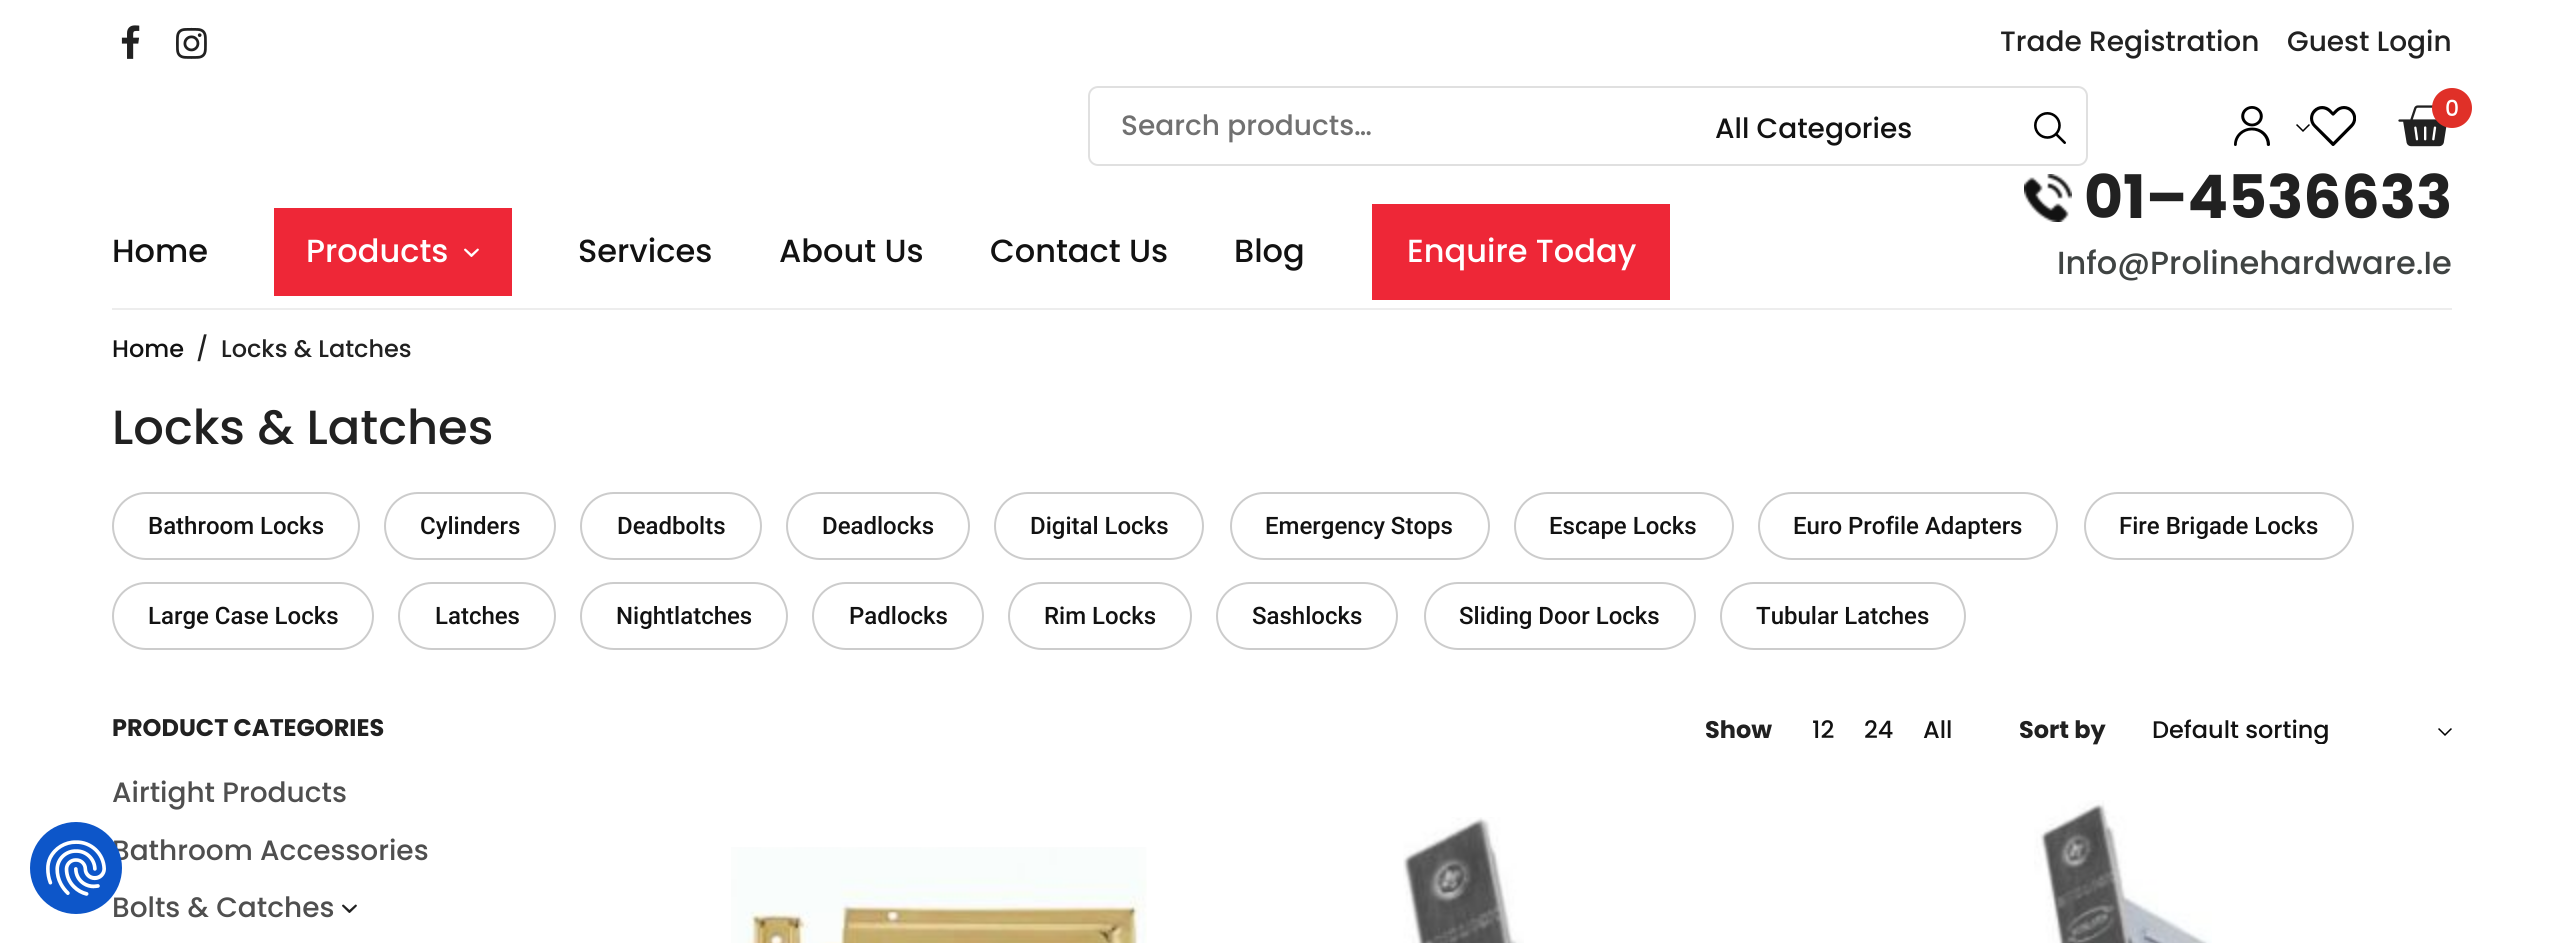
import math
import cairo

surface = cairo.ImageSurface(cairo.FORMAT_RGB24, 2563, 943)
c = cairo.Context(surface)
options = cairo.FontOptions()
options.set_hint_metrics(cairo.HINT_METRICS_OFF)
options.set_hint_style(cairo.HINT_STYLE_NONE)
c.set_font_options(options)
c.set_miter_limit(4)
def C(code):
 c.set_source_rgb(*(v / 255 for v in bytes.fromhex(code[-6:])))
def F(family, size, italic, bold):
 c.select_font_face(family, cairo.FONT_SLANT_ITALIC if italic else cairo.FONT_SLANT_NORMAL, cairo.FONT_WEIGHT_BOLD if bold else cairo.FONT_WEIGHT_NORMAL)
 c.set_font_size(size)
def T(x, y, s):
 c.move_to(x, y)
 c.show_text(s)
def R(x, y, w, h):
 c.rectangle(x, y, w, h)
 c.fill()
def Q(x, y, w, h, r):
 c.new_sub_path()
 for i, (u, v) in enumerate([(x + w - r, y + h - r), (x + r, y + h - r), (x + r, y + r), (x + w - r, y + r)]):
  c.arc(u, v, r, i * math.pi / 2, (i + 1) * math.pi / 2)
 c.close_path()
def I(path, x, y, w, h):
 c.save()
 c.set_source_surface(cairo.ImageSurface.create_from_png(path), x, y)
 c.rectangle(x, y, w, h)
 c.fill()
 c.restore()
C('ffffff')
c.paint()
F('Poppins Medium',28,0,0)
C('4f4f4f')
T(112,860,'Bathroom Accessories')
T(112,917,'Bolts & Catches')
C('0d56c9')
c.new_path()
c.arc(76,868,45,0,2 * math.pi)
c.fill_preserve()
c.stroke()
I('1.png',46,840,60,56)
I('2.png',121,25,19,34)
I('3.png',176,27,31,32)
C('212121')
T(2000,51,'Trade Registration')
T(2287,51,'Guest Login')
I('4.png',2234,106,36,40)
I('5.png',2310,106,46,40)
I('6.png',2398,105,49,42)
C('e03028')
c.arc(2452,108,20,0,2 * math.pi)
c.fill()
F('Poppins Medium',22,0,0)
C('ffffff')
T(2445,116,'0')
Q(1089,87,998,78,9)
C('e0e0e0')
c.stroke()
F('Poppins Medium',28,0,0)
C('717171')
T(1121,135,'Search products…')
I('7.png',2296,124,14,8)
C('121212')
T(1715,138,'All Categories')
I('8.png',2034,112,32,32)
F('Poppins Medium',32,0,0)
T(112,262,'Home')
C('ee2737')
R(274,208,238,88)
C('ffffff')
T(306,262,'Products')
I('9.png',464,248,15,9)
C('121212')
T(578,262,'Services')
T(779,262,'About Us')
T(990,262,'Contact Us')
T(1234,262,'Blog')
C('ee2737')
R(1372,204,298,96)
C('ffffff')
T(1407,262,'Enquire Today')
I('10.png',2024,174,48,48)
F('Poppins',60,0,1)
C('212121')
T(2084,218,'01–4536633')
F('Poppins Medium',32,0,0)
C('404443')
T(2057,274,'Info@Prolinehardware.Ie')
C('ededed')
R(112,308,2340,2)
F('Poppins Medium',24,0,0)
C('121212')
T(112,357,'Home')
C('212121')
T(196,357,'/')
T(221,357,'Locks & Latches')
F('Poppins Medium',48,0,0)
T(112,444,'Locks & Latches')
Q(113,493,246,66,33)
C('cccccc')
c.stroke()
F('Roboto Medium',24,0,0)
C('121212')
T(148,534,'Bathroom Locks')
Q(385,493,170,66,33)
C('cccccc')
c.stroke()
C('121212')
T(420,534,'Cylinders')
Q(581,493,180,66,33)
C('cccccc')
c.stroke()
C('121212')
T(617,534,'Deadbolts')
Q(787,493,182,66,33)
C('cccccc')
c.stroke()
C('121212')
T(822,534,'Deadlocks')
Q(995,493,208,66,33)
C('cccccc')
c.stroke()
C('121212')
T(1030,534,'Digital Locks')
Q(1231,493,258,66,33)
C('cccccc')
c.stroke()
C('121212')
T(1265,534,'Emergency Stops')
Q(1515,493,218,66,33)
C('cccccc')
c.stroke()
C('121212')
T(1549,534,'Escape Locks')
Q(1759,493,298,66,33)
C('cccccc')
c.stroke()
C('121212')
T(1793,534,'Euro Profile Adapters')
Q(2085,493,268,66,33)
C('cccccc')
c.stroke()
C('121212')
T(2119,534,'Fire Brigade Locks')
Q(113,583,260,66,33)
C('cccccc')
c.stroke()
C('121212')
T(148,624,'Large Case Locks')
Q(399,583,156,66,33)
C('cccccc')
c.stroke()
C('121212')
T(435,624,'Latches')
Q(581,583,206,66,33)
C('cccccc')
c.stroke()
C('121212')
T(616,624,'Nightlatches')
Q(813,583,170,66,33)
C('cccccc')
c.stroke()
C('121212')
T(849,624,'Padlocks')
Q(1009,583,182,66,33)
C('cccccc')
c.stroke()
C('121212')
T(1044,624,'Rim Locks')
Q(1217,583,180,66,33)
C('cccccc')
c.stroke()
C('121212')
T(1252,624,'Sashlocks')
Q(1425,583,270,66,33)
C('cccccc')
c.stroke()
C('121212')
T(1459,624,'Sliding Door Locks')
Q(1721,583,244,66,33)
C('cccccc')
c.stroke()
C('121212')
T(1756,624,'Tubular Latches')
F('Poppins',24,0,1)
C('212121')
T(112,736,'PRODUCT CATEGORIES')
F('Poppins Medium',28,0,0)
C('4f4f4f')
T(112,802,'Airtight Products')
I('11.png',342,904,15,9)
F('Poppins',24,0,1)
C('212121')
T(1705,738,'Show')
F('Poppins Medium',24,0,0)
C('121212')
T(1812,738,'12')
T(1864,738,'24')
T(1923,738,'All')
F('Poppins',24,0,1)
C('212121')
T(2019,738,'Sort by')
I('7.png',2438,728,14,8)
c.save()
c.rectangle(2152,716,300,28)
c.clip()
F('Poppins Medium',24,0,0)
C('121212')
T(2152,738,'Default sorting')
c.restore()
I('12.png',731,847,416,96)
I('13.png',1403,817,121,126)
I('14.png',2034,800,178,143)
surface.write_to_png('o.png')
